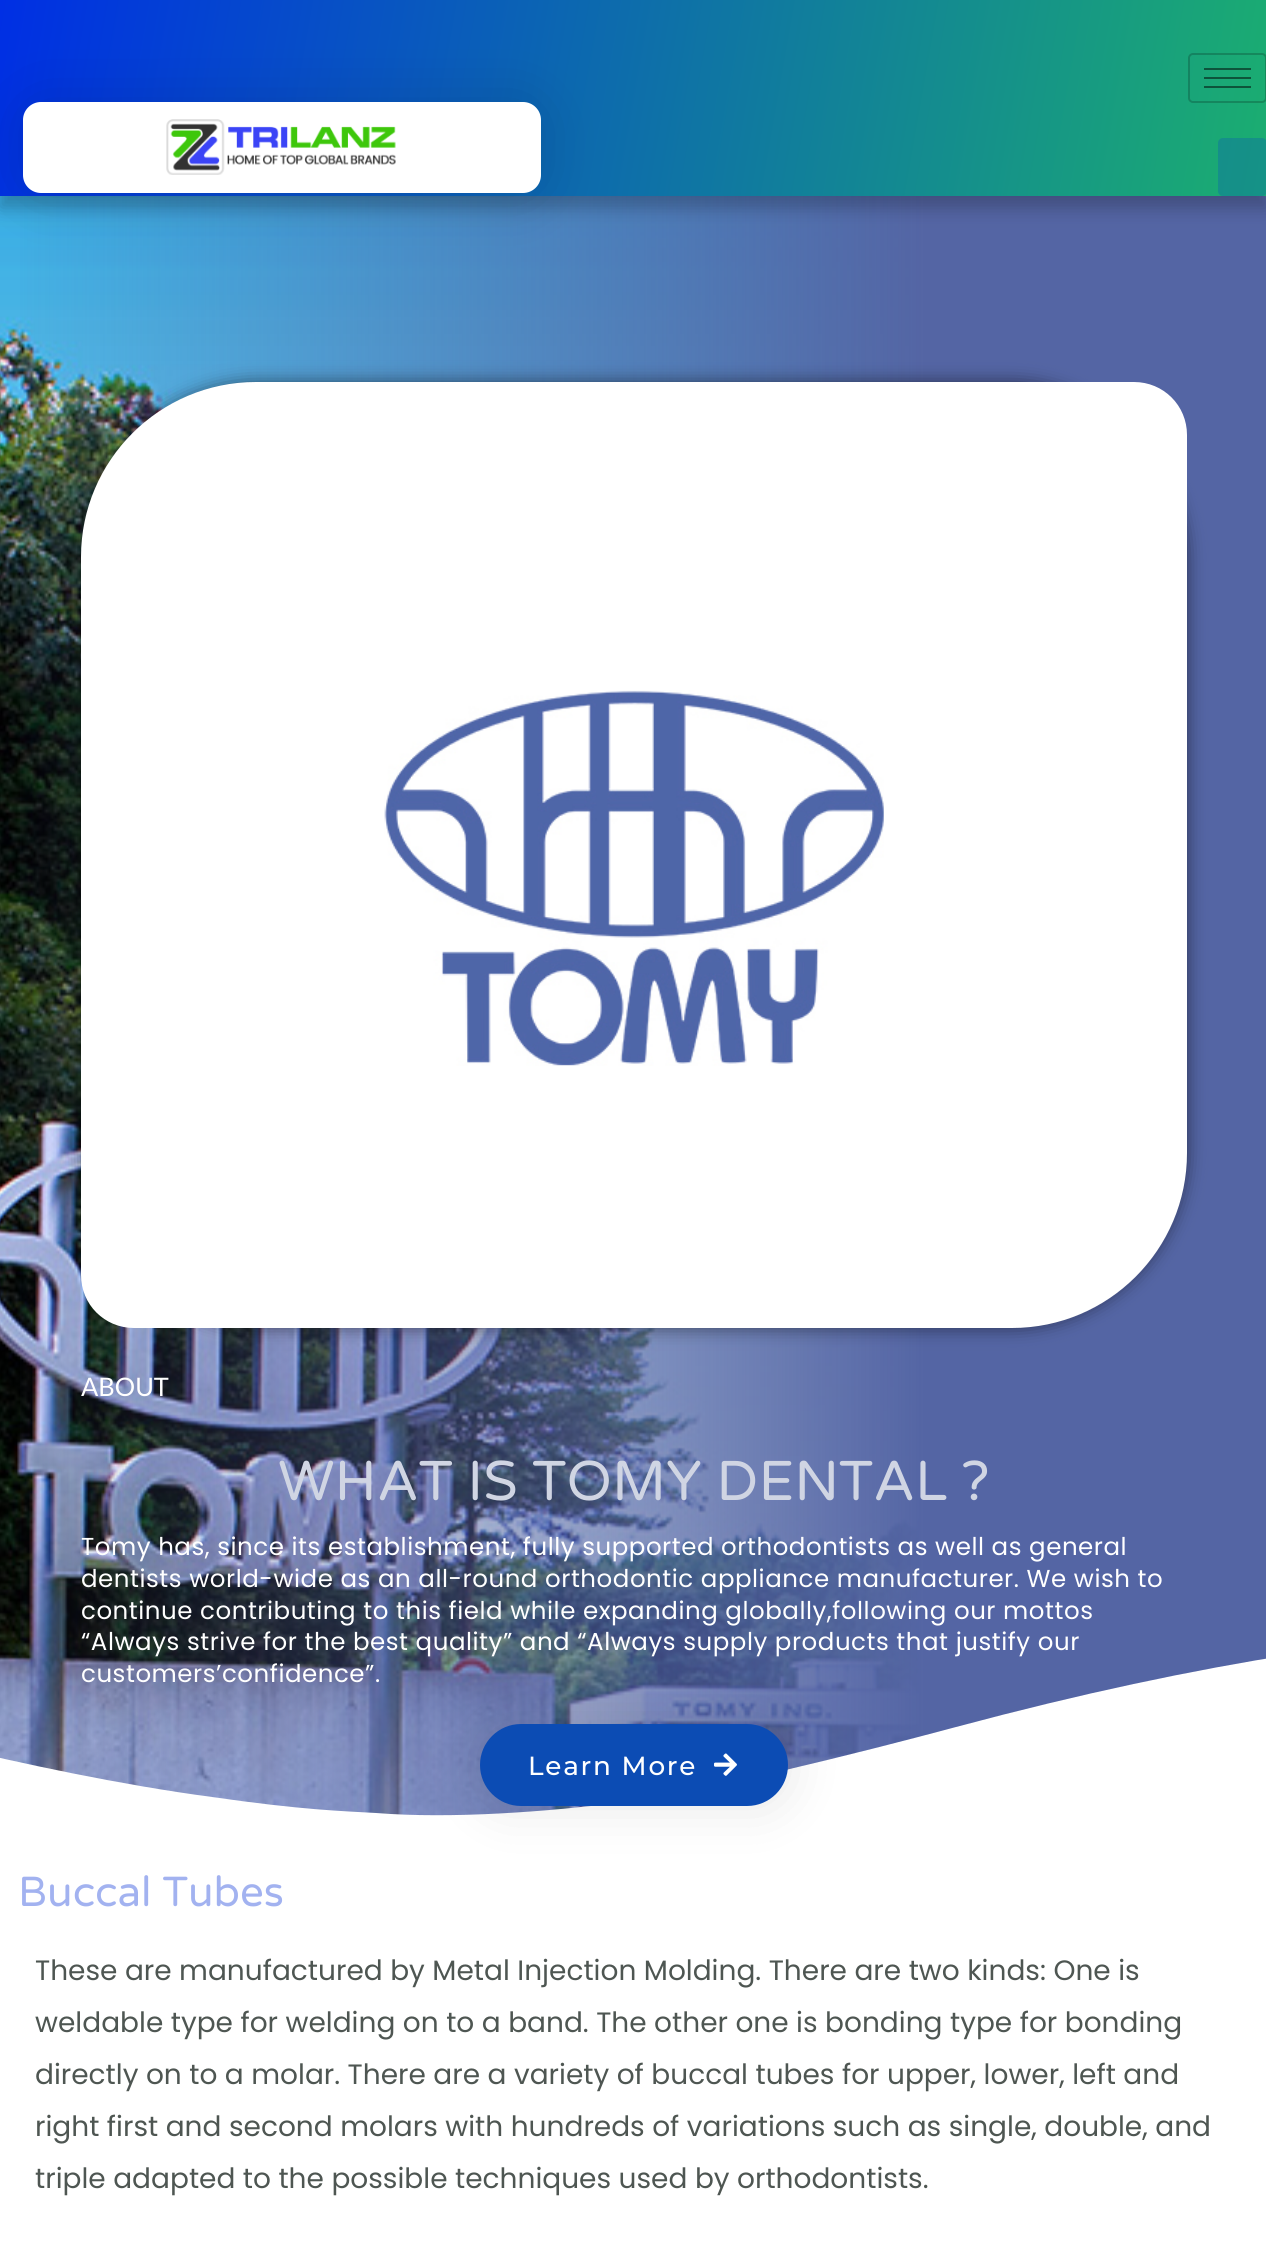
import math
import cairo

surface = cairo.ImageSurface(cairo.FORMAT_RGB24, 1266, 2262)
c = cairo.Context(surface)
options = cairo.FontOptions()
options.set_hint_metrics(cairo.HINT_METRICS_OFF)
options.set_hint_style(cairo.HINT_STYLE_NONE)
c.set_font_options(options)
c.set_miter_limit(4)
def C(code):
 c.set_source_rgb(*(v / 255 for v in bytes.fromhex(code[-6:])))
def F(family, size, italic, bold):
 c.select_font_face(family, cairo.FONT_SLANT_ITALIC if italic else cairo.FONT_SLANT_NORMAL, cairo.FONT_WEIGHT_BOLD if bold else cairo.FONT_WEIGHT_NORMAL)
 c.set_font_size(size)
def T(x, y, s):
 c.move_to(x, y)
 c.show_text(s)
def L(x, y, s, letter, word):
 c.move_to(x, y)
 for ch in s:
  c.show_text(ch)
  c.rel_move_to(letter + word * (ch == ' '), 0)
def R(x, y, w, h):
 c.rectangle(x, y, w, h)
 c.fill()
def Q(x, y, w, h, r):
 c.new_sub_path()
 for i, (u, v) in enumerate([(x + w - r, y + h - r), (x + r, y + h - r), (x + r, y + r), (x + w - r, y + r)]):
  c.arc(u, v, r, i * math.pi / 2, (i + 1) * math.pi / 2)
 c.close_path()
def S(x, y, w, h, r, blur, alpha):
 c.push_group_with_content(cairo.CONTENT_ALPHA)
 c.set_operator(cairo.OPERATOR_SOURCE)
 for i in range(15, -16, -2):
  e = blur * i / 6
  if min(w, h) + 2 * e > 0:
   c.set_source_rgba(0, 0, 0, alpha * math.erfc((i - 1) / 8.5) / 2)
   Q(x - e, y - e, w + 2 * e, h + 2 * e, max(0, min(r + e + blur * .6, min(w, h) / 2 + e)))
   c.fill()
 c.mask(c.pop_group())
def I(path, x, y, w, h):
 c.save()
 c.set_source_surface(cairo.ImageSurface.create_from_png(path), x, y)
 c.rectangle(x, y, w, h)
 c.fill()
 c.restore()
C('ffffff')
c.paint()
I('2.png',0,196,919,1620)
gradient = cairo.LinearGradient(0,998,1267,998)
gradient.add_color_stop_rgba(0,0.329,0.396,0.643,0)
gradient.add_color_stop_rgba(.73,0.329,0.396,0.643,1)
c.set_source(gradient)
R(20,196,1246,1620)
C('000000')
S(0,12,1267,196,0,9,.23)
gradient = cairo.LinearGradient(2.3,-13,1265,209)
gradient.add_color_stop_rgba(0,0,0.184,0.894,1)
gradient.add_color_stop_rgba(1,0.106,0.682,0.439,1)
c.set_source(gradient)
R(0,0,1266,196)
gradient = cairo.LinearGradient(2.3,-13,1265,209)
gradient.add_color_stop_rgba(0,0,0.094,0.447,1)
gradient.add_color_stop_rgba(1,0.055,0.341,0.22,1)
c.set_source(gradient)
R(1204,86,47,2)
R(1204,77,47,2)
R(1204,68,47,2)
C('000000')
S(23,102,518,91,18,29,.13)
C('ffffff')
Q(23,102,518,91,18)
c.fill()
I('1.png',166,119,230,56)
Q(1189,54,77,48,4)
c.set_source_rgba(0,0,0,0.2)
c.stroke()
c.set_source_rgba(0,0.173,0.839,0.21)
Q(1218,138,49,58,5)
c.fill()
C('000000')
S(81,382,1106,946,175,9,.5)
C('ffffff')
c.new_path()
c.move_to(256,382)
c.line_to(1134,382)
c.curve_to(1163.5,382,1187,405.5,1187,435)
c.line_to(1187,1153)
c.curve_to(1187,1249.5,1108.5,1328,1012,1328)
c.line_to(134,1328)
c.curve_to(104.5,1328,81,1304.5,81,1275)
c.line_to(81,557)
c.curve_to(81,460.5,159.5,382,256,382)
c.close_path()
c.fill()
I('3.png',384,690,500,376)
F('Lato',25.5,0,0)
T(81,1396,'ABOUT')
F('Varela Round',56,0,0)
C('d0d5e3')
T(278,1500,'WHAT IS TOMY DENTAL ?')
F('Poppins',24.5,0,0)
C('ffffff')
L(81,1555,'Tomy has, since its establishment, fully supported orthodontists as well as general',.53,0)
L(81,1587,'dentists world-wide as an all-round orthodontic appliance manufacturer. We wish to',.53,0)
L(81,1619,'continue contributing to this field while expanding globally,following our mottos',.53,0)
L(81,1650,'“Always strive for the best quality” and “Always supply products that justify our',.53,0)
c.save()
c.rectangle(0,1615,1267,210)
c.clip()
c.new_path()
c.move_to(376,1813)
c.curve_to(451,1819,546,1812,625,1802)
c.curve_to(703,1792,859,1753,956,1727)
c.curve_to(1206,1660,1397,1634,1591,1623)
c.curve_to(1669,1618,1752,1615,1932,1628)
c.curve_to(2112,1641,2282,1682,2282,1682)
c.line_to(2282,1827)
c.line_to(-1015,1827)
c.line_to(-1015,1763)
c.curve_to(-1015,1763,-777,1695,-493,1699)
c.curve_to(-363,1701,-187,1713,-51,1746)
c.curve_to(19,1763,121,1785,212,1797)
c.curve_to(302,1810,342,1811,376,1813)
c.close_path()
c.fill()
c.restore()
L(81,1682,'customers’confidence”.',.53,0)
C('000000')
S(480,1724,308,82,41,26,.1)
C('0c4cb4')
Q(480,1724,308,82,41)
c.fill()
F('Montserrat Medium',26.25,0,0)
C('ffffff')
L(528,1775,'Learn More',1.75,0)
I('4.png',714,1753,23,23)
F('Varela Round',42,0,0)
C('a2b2f0')
T(18,1906,'Buccal Tubes')
F('Poppins',28,0,0)
C('4e5652')
T(35,1980,'These are manufactured by Metal Injection Molding. There are two kinds: One is')
T(35,2032,'weldable type for welding on to a band. The other one is bonding type for bonding')
T(35,2084,'directly on to a molar. There are a variety of buccal tubes for upper, lower, left and')
T(35,2136,'right first and second molars with hundreds of variations such as single, double, and')
T(35,2188,'triple adapted to the possible techniques used by orthodontists.')
surface.write_to_png('o.png')
